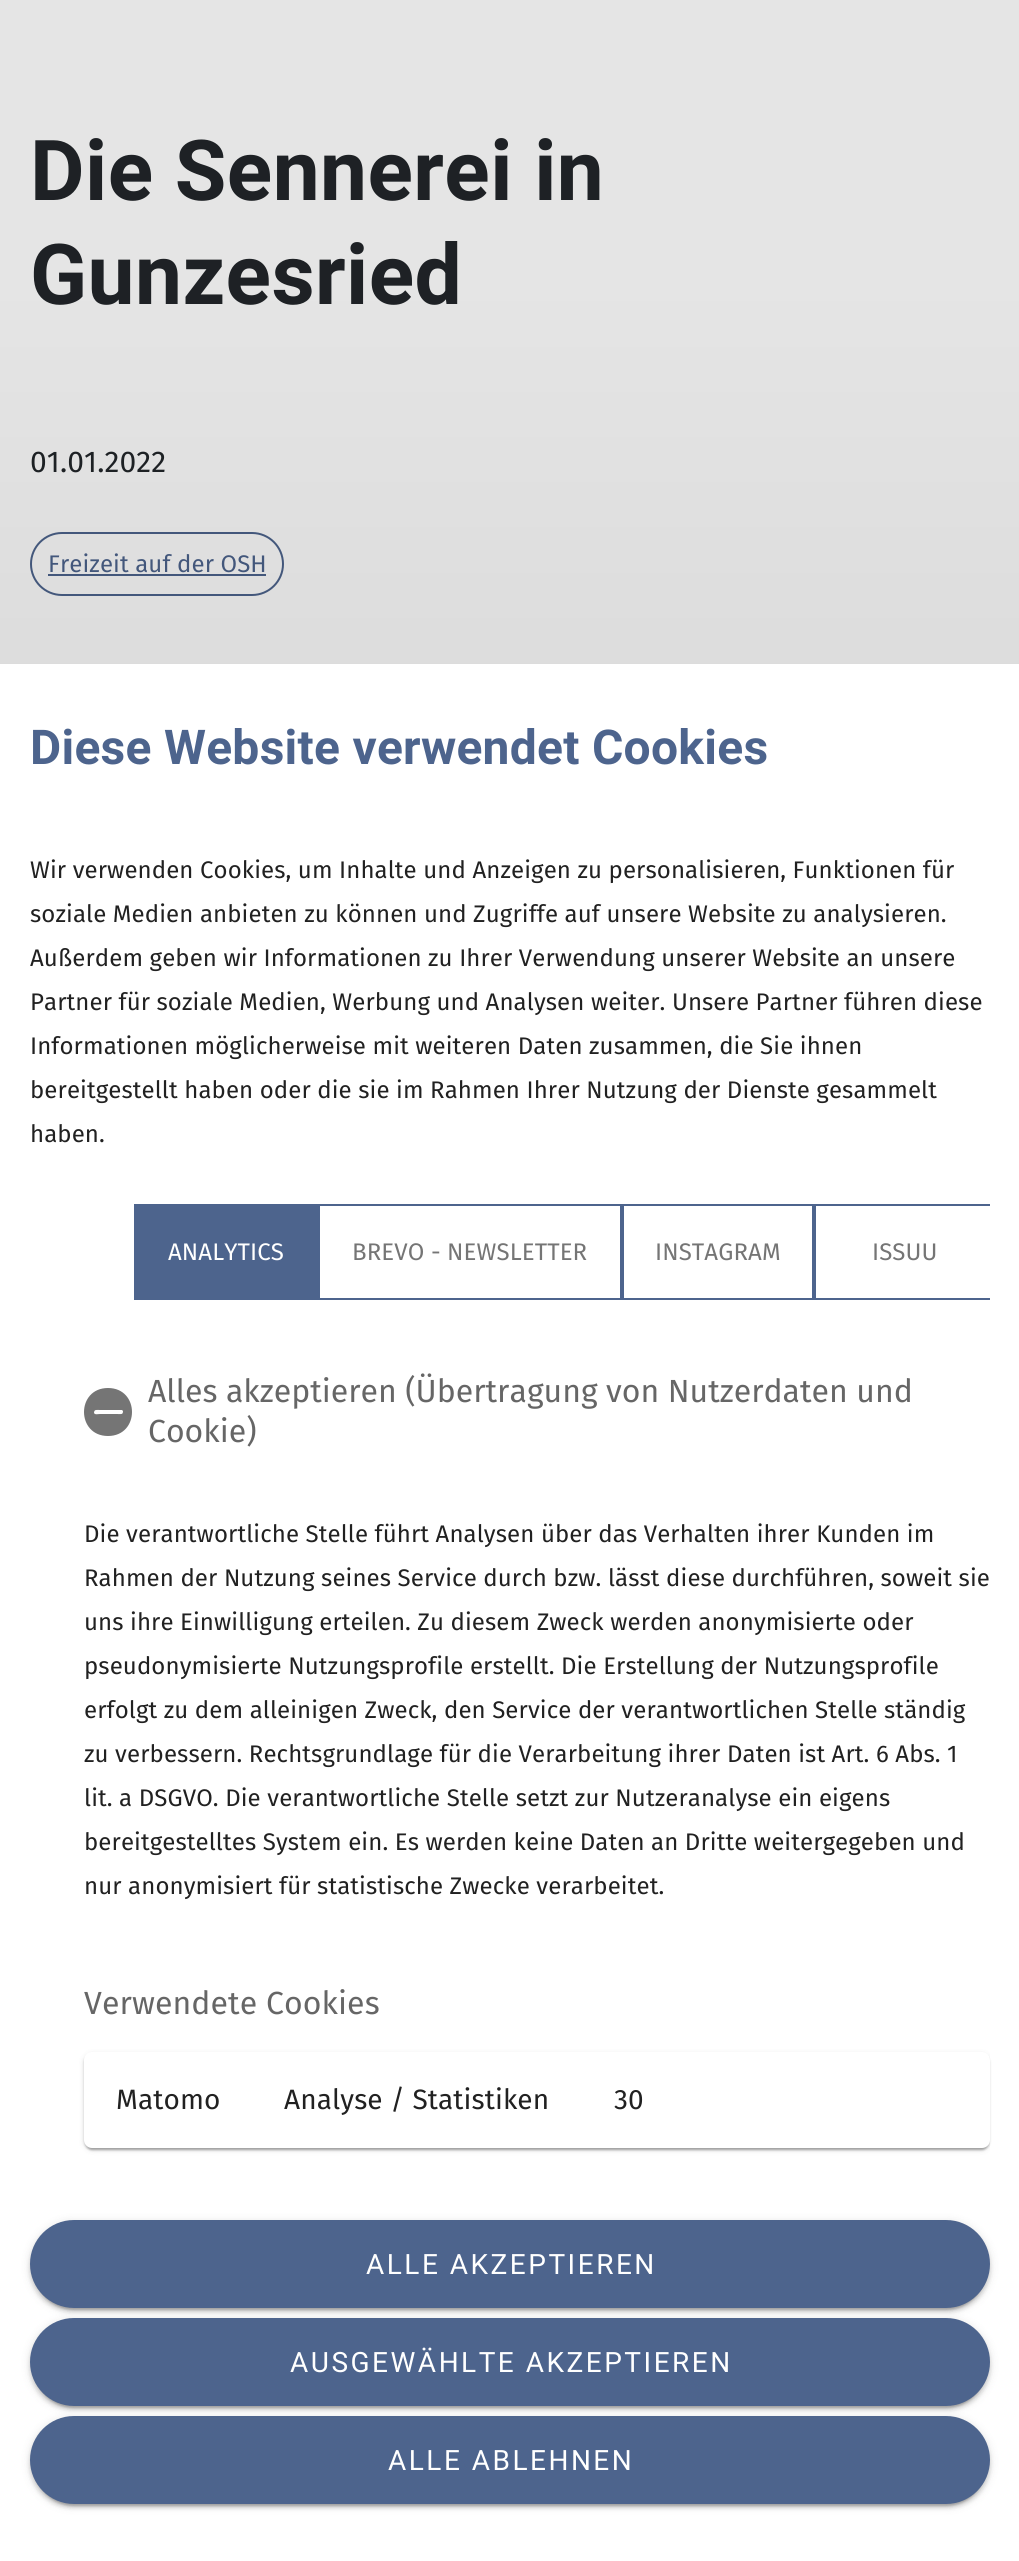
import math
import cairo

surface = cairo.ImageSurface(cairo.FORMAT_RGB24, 1019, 2561)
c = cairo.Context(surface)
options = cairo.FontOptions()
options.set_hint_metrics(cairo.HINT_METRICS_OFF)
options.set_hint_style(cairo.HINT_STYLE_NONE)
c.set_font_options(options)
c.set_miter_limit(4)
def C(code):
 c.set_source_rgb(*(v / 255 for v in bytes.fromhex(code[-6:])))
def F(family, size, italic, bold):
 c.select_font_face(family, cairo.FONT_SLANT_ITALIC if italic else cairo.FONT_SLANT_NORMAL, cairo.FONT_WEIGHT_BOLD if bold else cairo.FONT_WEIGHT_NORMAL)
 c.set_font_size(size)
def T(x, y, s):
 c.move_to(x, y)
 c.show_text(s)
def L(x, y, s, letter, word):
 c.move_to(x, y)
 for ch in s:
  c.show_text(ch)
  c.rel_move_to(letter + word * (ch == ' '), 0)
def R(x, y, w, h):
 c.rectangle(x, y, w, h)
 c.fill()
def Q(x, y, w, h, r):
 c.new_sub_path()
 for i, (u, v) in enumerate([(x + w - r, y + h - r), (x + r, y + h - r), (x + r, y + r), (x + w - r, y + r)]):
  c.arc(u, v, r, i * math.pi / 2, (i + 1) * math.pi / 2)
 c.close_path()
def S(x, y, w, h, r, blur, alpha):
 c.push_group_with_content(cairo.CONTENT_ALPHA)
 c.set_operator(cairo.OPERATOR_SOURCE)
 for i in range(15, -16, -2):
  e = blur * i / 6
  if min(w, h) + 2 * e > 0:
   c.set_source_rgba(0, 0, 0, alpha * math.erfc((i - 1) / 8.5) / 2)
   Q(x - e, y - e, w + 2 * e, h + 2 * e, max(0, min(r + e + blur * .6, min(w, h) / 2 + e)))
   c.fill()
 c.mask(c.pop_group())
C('ffffff')
c.paint()
F('Roboto',84,0,1)
C('212529')
L(30,200,'Die Sennerei in',.4,0)
L(30,304,'Gunzesried',.4,0)
F('Fira Sans',30,0,0)
L(30,472,'01.01.2022',.1,0)
Q(31,533,252,62,31)
C('4d648d')
c.stroke()
F('Fira Sans',24,0,0)
L(48,572,'Freizeit auf der OSH',.1,0)
R(48,574,218,2)
gradient = cairo.LinearGradient(510,0,510,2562)
gradient.add_color_stop_rgba(.1,0,0,0,.1)
gradient.add_color_stop_rgba(1,0,0,0,.3)
c.set_source(gradient)
R(0,0,1019,664)
F('Roboto',48,0,1)
C('4d648d')
L(30,764,'Diese Website verwendet Cookies',.25,0)
F('Fira Sans',24,0,0)
C('212121')
L(30,878,'Wir verwenden Cookies, um Inhalte und Anzeigen zu personalisieren, Funktionen für',.1,0)
L(30,922,'soziale Medien anbieten zu können und Zugriffe auf unsere Website zu analysieren.',.1,0)
L(30,966,'Außerdem geben wir Informationen zu Ihrer Verwendung unserer Website an unsere',.1,0)
L(30,1010,'Partner für soziale Medien, Werbung und Analysen weiter. Unsere Partner führen diese',.1,0)
L(30,1054,'Informationen möglicherweise mit weiteren Daten zusammen, die Sie ihnen',.1,0)
L(30,1098,'bereitgestellt haben oder die sie im Rahmen Ihrer Nutzung der Dienste gesammelt',.1,0)
L(30,1142,'haben.',.1,0)
C('4d648d')
R(134,1204,184,96)
C('ffffff')
L(168,1260,'ANALYTICS',.1,0)
c.rectangle(319,1205,302,94)
C('4d648d')
c.stroke()
C('757575')
L(352,1260,'BREVO - NEWSLETTER',.1,0)
c.rectangle(623,1205,190,94)
C('4d648d')
c.stroke()
C('757575')
L(655,1260,'INSTAGRAM',.1,0)
c.save()
c.rectangle(134,1204,856,96)
c.clip()
c.rectangle(815,1205,178,94)
C('4d648d')
c.stroke()
c.restore()
L(872,1260,'ISSUU',.1,0)
c.new_path()
c.move_to(108,1388)
c.curve_to(140,1388,140,1436,108,1436)
c.curve_to(76,1436,76,1388,108,1388)
c.close_path()
c.move_to(122,1410)
c.line_to(100,1410)
c.curve_to(97,1410,94,1409,94,1413)
c.curve_to(95,1415,98,1414,100,1414)
c.line_to(117,1414)
c.curve_to(121,1414,123,1415,123,1411)
c.close_path()
c.fill()
F('Fira Sans',32,0,0)
C('666666')
T(148,1402,'Alles akzeptieren (Übertragung von Nutzerdaten und')
T(148,1442,'Cookie)')
F('Fira Sans',24,0,0)
C('212121')
L(84,1542,'Die verantwortliche Stelle führt Analysen über das Verhalten ihrer Kunden im',.1,0)
L(84,1586,'Rahmen der Nutzung seines Service durch bzw. lässt diese durchführen, soweit sie',.1,0)
L(84,1630,'uns ihre Einwilligung erteilen. Zu diesem Zweck werden anonymisierte oder',.1,0)
L(84,1674,'pseudonymisierte Nutzungsprofile erstellt. Die Erstellung der Nutzungsprofile',.1,0)
L(84,1718,'erfolgt zu dem alleinigen Zweck, den Service der verantwortlichen Stelle ständig',.1,0)
L(84,1762,'zu verbessern. Rechtsgrundlage für die Verarbeitung ihrer Daten ist Art. 6 Abs. 1',.1,0)
L(84,1806,'lit. a DSGVO. Die verantwortliche Stelle setzt zur Nutzeranalyse ein eigens',.1,0)
L(84,1850,'bereitgestelltes System ein. Es werden keine Daten an Dritte weitergegeben und',.1,0)
L(84,1894,'nur anonymisiert für statistische Zwecke verarbeitet.',.1,0)
F('Fira Sans',32,0,0)
C('666666')
L(84,2014,'Verwendete Cookies',.1,0)
c.save()
c.rectangle(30,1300,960,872)
c.clip()
C('000000')
S(84,2054,906,96,8,3,.12)
c.restore()
C('000000')
S(84,2054,906,96,8,1,.14)
S(86,2058,902,92,6,1,.2)
C('ffffff')
Q(84,2052,906,96,8)
c.fill()
F('Fira Sans',28,0,0)
C('212121')
L(116,2109,'Matomo',.1,0)
L(284,2109,'Analyse / Statistiken',.1,0)
L(614,2109,'30',.1,0)
C('000000')
S(30,2222,960,88,44,5,.12)
S(30,2224,960,88,44,2,.14)
S(34,2230,952,80,40,1,.2)
C('4d648d')
Q(30,2220,960,88,44)
c.fill()
F('Roboto',28,0,0)
C('ffffff')
L(366,2274,'ALLE AKZEPTIEREN',2.5,0)
C('000000')
S(30,2320,960,88,44,5,.12)
S(30,2322,960,88,44,2,.14)
S(34,2328,952,80,40,1,.2)
C('4d648d')
Q(30,2318,960,88,44)
c.fill()
C('ffffff')
L(290,2372,'AUSGEWÄHLTE AKZEPTIEREN',2.5,0)
C('000000')
S(30,2418,960,88,44,5,.12)
S(30,2420,960,88,44,2,.14)
S(34,2426,952,80,40,1,.2)
C('4d648d')
Q(30,2416,960,88,44)
c.fill()
C('ffffff')
L(388,2470,'ALLE ABLEHNEN',2.5,0)
surface.write_to_png('o.png')
